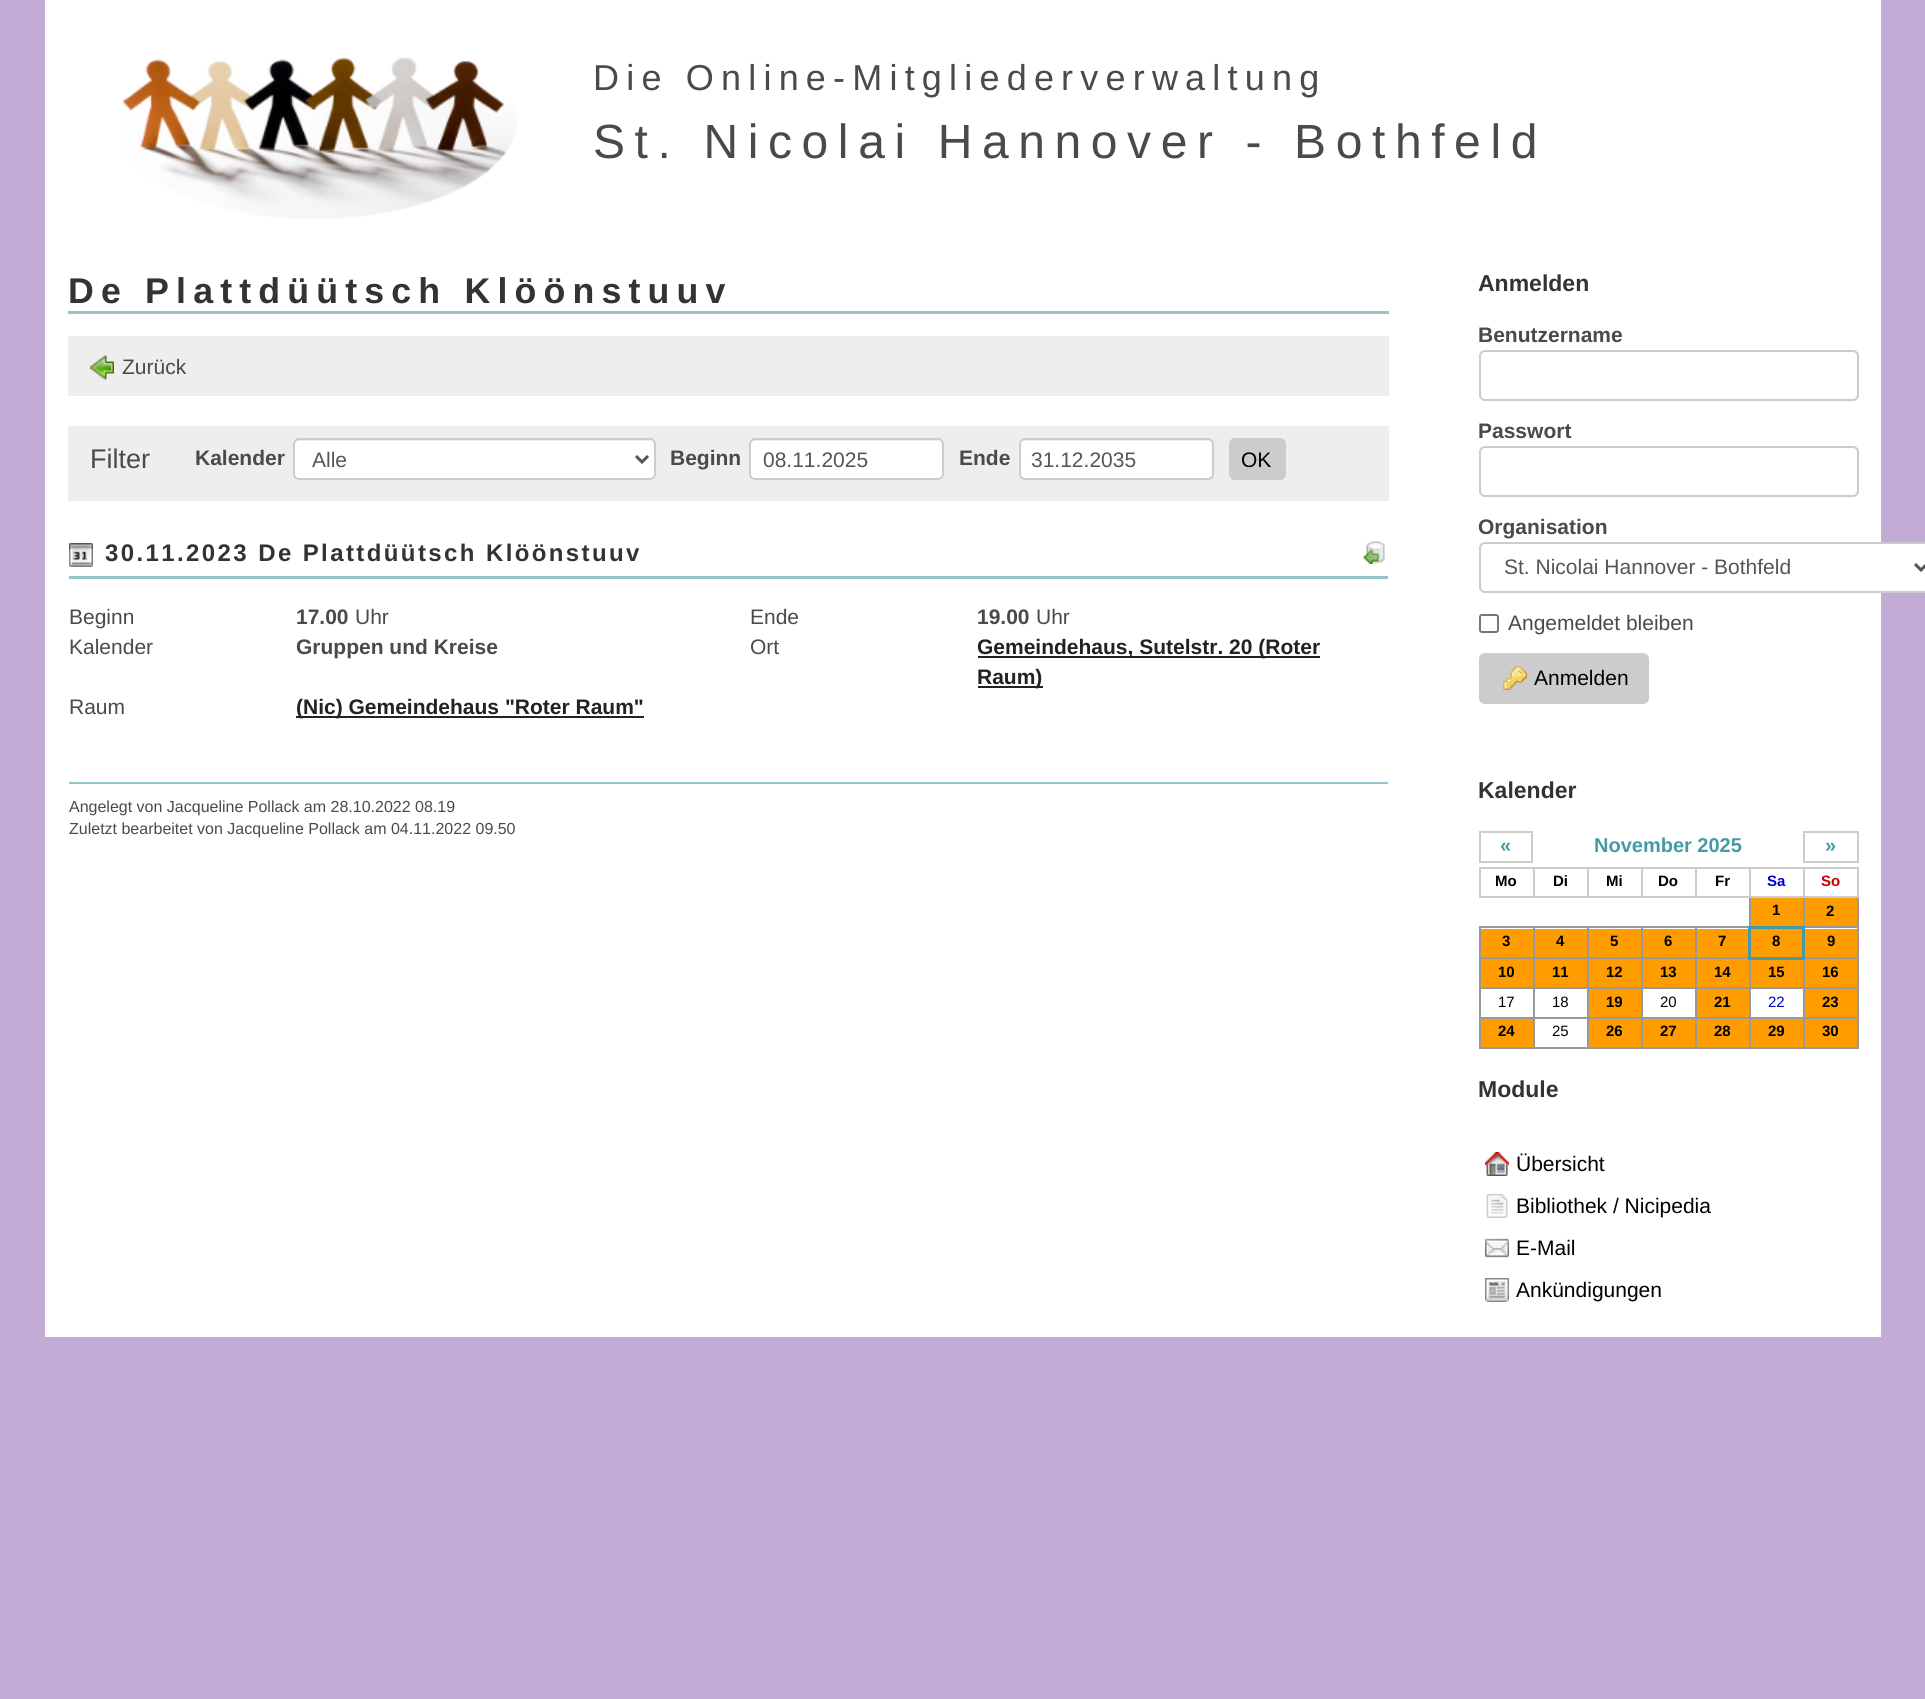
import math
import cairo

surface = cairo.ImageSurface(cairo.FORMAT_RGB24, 1925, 1699)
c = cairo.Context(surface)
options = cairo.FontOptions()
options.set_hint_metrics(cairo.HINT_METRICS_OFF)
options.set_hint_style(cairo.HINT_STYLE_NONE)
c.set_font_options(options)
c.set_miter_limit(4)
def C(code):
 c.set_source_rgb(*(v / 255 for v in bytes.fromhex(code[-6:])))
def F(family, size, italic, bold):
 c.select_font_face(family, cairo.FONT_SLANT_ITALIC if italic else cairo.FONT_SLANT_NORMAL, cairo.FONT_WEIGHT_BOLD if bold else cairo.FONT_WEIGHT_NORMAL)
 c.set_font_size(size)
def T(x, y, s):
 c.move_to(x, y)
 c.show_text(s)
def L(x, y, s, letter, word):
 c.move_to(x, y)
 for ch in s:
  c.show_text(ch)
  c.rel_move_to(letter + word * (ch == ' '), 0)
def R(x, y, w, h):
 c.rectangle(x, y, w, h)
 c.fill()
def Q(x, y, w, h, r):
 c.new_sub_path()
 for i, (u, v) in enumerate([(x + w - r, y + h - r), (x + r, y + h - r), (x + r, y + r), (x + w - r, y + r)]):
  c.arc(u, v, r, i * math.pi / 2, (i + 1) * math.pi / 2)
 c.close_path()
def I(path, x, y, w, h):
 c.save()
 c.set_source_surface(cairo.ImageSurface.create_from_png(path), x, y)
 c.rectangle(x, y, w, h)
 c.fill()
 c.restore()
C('c2abd4')
c.paint()
C('ffffff')
R(45,0,1836,1337)
I('1.png',122,57,395,162)
F('Liberation Sans',36,0,0)
C('474b4c')
L(593,90,'Die Online-Mitgliederverwaltung',7.2,0)
F('Liberation Sans',48,0,0)
L(593,158,'St. Nicolai Hannover - Bothfeld',9.6,0)
C('96c4cb')
R(68,311,1321,3)
F('Liberation Sans',35.75,0,1)
C('333333')
L(68,303,'De Plattdüütsch Klöönstuuv',7.15,0)
C('eeeeee')
R(68,336,1321,60)
I('2.png',90,355,24,25)
F('Liberation Sans',21,0,0)
C('474b4c')
T(122,374,'Zurück')
C('eeeeee')
R(68,426,1321,75)
F('Liberation Sans',27,0,0)
C('474b4c')
T(90,468,'Filter')
F('Liberation Sans',21,0,1)
T(195,465,'Kalender')
C('ffffff')
Q(293,438,363,42,6)
c.fill()
C('ececec')
c.new_path()
c.move_to(298,441)
c.line_to(650,441)
c.curve_to(652,441,654,443,654,446)
c.line_to(654,445)
c.curve_to(654,442,652,440,649,440)
c.line_to(299,440)
c.curve_to(296,440,294,442,294,445)
c.line_to(294,446)
c.curve_to(294,443,296,441,298,441)
c.close_path()
c.fill()
Q(294,439,361,40,5)
C('cccccc')
c.stroke()
c.new_path()
c.move_to(636,456)
c.line_to(642,462)
c.line_to(648,456)
C('555555')
c.set_line_width(3)
c.stroke()
F('Liberation Sans',21,0,0)
T(312,467,'Alle')
F('Liberation Sans',21,0,1)
C('474b4c')
T(670,465,'Beginn')
C('ffffff')
Q(749,438,195,42,6)
c.fill()
C('ececec')
c.new_path()
c.move_to(754,441)
c.line_to(938,441)
c.curve_to(940,441,942,443,942,446)
c.line_to(942,445)
c.curve_to(942,442,940,440,937,440)
c.line_to(755,440)
c.curve_to(752,440,750,442,750,445)
c.line_to(750,446)
c.curve_to(750,443,752,441,754,441)
c.close_path()
c.fill()
Q(750,439,193,40,5)
C('cccccc')
c.set_line_width(2)
c.stroke()
F('Liberation Sans',21,0,0)
C('555555')
T(763,467,'08.11.2025')
F('Liberation Sans',21,0,1)
C('474b4c')
T(959,465,'Ende')
C('ffffff')
Q(1019,438,195,42,6)
c.fill()
C('ececec')
c.new_path()
c.move_to(1024,441)
c.line_to(1208,441)
c.curve_to(1210,441,1212,443,1212,446)
c.line_to(1212,445)
c.curve_to(1212,442,1210,440,1207,440)
c.line_to(1025,440)
c.curve_to(1022,440,1020,442,1020,445)
c.line_to(1020,446)
c.curve_to(1020,443,1022,441,1024,441)
c.close_path()
c.fill()
Q(1020,439,193,40,5)
C('cccccc')
c.stroke()
F('Liberation Sans',21,0,0)
C('555555')
T(1031,467,'31.12.2035')
C('cccccc')
Q(1230,439,55,40,5)
c.fill_preserve()
c.stroke()
C('000000')
T(1241,467,'OK')
C('96c4cb')
R(69,576,1319,3)
I('3.png',69,543,24,24)
F('Liberation Sans',24,0,1)
C('333333')
L(105,561,'30.11.2023 De Plattdüütsch Klöönstuuv',2.4,0)
I('4.png',1363,541,22,23)
F('Liberation Sans',21,0,0)
C('474b4c')
T(69,624,'Beginn')
F('Liberation Sans',21,0,1)
T(296,624,'17.00')
F('Liberation Sans',21,0,0)
T(355,624,'Uhr')
T(750,624,'Ende')
F('Liberation Sans',21,0,1)
T(977,624,'19.00')
F('Liberation Sans',21,0,0)
T(1036,624,'Uhr')
T(69,654,'Kalender')
F('Liberation Sans',21,0,1)
T(296,654,'Gruppen und Kreise')
F('Liberation Sans',21,0,0)
T(750,654,'Ort')
C('222222')
R(978,656,342,2)
F('Liberation Sans',21,0,1)
T(977,654,'Gemeindehaus, Sutelstr. 20 (Roter')
R(978,686,65,2)
T(977,684,'Raum)')
F('Liberation Sans',21,0,0)
C('474b4c')
T(69,714,'Raum')
C('222222')
R(296,716,348,2)
F('Liberation Sans',21,0,1)
T(296,714,'(Nic) Gemeindehaus "Roter Raum"')
C('96c4cb')
R(69,782,1319,2)
F('Liberation Sans',16,0,0)
C('474b4c')
T(69,812,'Angelegt von Jacqueline Pollack am 28.10.2022 08.19')
T(69,834,'Zuletzt bearbeitet von Jacqueline Pollack am 04.11.2022 09.50')
F('Liberation Sans',23,0,1)
C('333333')
T(1478,291,'Anmelden')
F('Liberation Sans',21,0,1)
C('474b4c')
T(1478,342,'Benutzername')
C('ececec')
c.new_path()
c.move_to(1485,352)
c.line_to(1852,352)
c.curve_to(1855,352,1857,355,1857,357)
c.line_to(1857,356)
c.curve_to(1857,353,1855,351,1852,351)
c.line_to(1486,351)
c.curve_to(1484,351,1482,352,1481,354)
c.curve_to(1482,353,1484,352,1485,352)
c.close_path()
c.fill()
Q(1480,351,378,49,5)
C('cccccc')
c.stroke()
C('474b4c')
T(1478,438,'Passwort')
C('ececec')
c.new_path()
c.move_to(1485,448)
c.line_to(1852,448)
c.curve_to(1855,448,1857,451,1857,453)
c.line_to(1857,452)
c.curve_to(1857,449,1855,447,1852,447)
c.line_to(1486,447)
c.curve_to(1484,447,1482,448,1481,450)
c.curve_to(1482,449,1484,448,1485,448)
c.close_path()
c.fill()
Q(1480,447,378,49,5)
C('cccccc')
c.stroke()
C('474b4c')
T(1478,534,'Organisation')
C('ffffff')
Q(1480,543,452,49,5)
c.fill_preserve()
C('cccccc')
c.stroke()
c.new_path()
c.move_to(1915,564)
c.line_to(1921,570)
c.line_to(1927,564)
C('555555')
c.set_line_width(3)
c.stroke()
F('Liberation Sans',21,0,0)
T(1504,574,'St. Nicolai Hannover - Bothfeld')
Q(1480,615,18,17,2)
C('767676')
c.set_line_width(2)
c.stroke()
C('474b4c')
T(1508,630,'Angemeldet bleiben')
C('cccccc')
Q(1480,654,168,49,5)
c.fill_preserve()
c.stroke()
I('5.png',1503,666,24,24)
C('000000')
T(1534,685,'Anmelden')
F('Liberation Sans',23,0,1)
C('333333')
T(1478,798,'Kalender')
c.rectangle(1480,832,52,30)
C('cccccc')
c.stroke()
F('Liberation Sans',20,0,1)
C('449ba6')
T(1500,852,'«')
T(1594,852,'November 2025')
c.rectangle(1804,832,54,30)
C('cccccc')
c.stroke()
C('449ba6')
T(1825,852,'»')
C('cccccc')
R(1803,867,56,2)
C('999999')
R(1803,926,56,2)
R(1803,957,56,2)
R(1803,987,56,2)
R(1803,1017,56,2)
R(1857,1017,2,32)
R(1857,987,2,32)
R(1857,957,2,32)
R(1857,896,2,63)
C('cccccc')
R(1857,867,2,30)
C('999999')
R(1803,896,2,31)
C('cccccc')
R(1803,896,56,2)
R(1803,867,2,30)
R(1749,867,56,2)
C('999999')
R(1695,926,56,2)
R(1749,896,2,31)
C('cccccc')
R(1749,896,56,2)
R(1749,867,2,30)
R(1695,867,56,2)
R(1695,896,56,2)
R(1695,867,2,30)
R(1641,867,56,2)
R(1641,896,56,2)
R(1641,867,2,30)
R(1587,867,56,2)
R(1587,896,56,2)
R(1587,867,2,30)
R(1533,867,56,2)
R(1533,896,56,2)
R(1533,867,2,30)
R(1479,867,56,2)
R(1479,896,56,2)
R(1479,867,2,30)
F('Liberation Sans',15,0,1)
C('000000')
T(1495,886,'Mo')
T(1553,886,'Di')
T(1606,886,'Mi')
T(1658,886,'Do')
T(1715,886,'Fr')
C('0000cc')
T(1767,886,'Sa')
C('c90000')
T(1821,886,'So')
C('ff9c00')
R(1751,898,52,28)
C('000000')
T(1772,915,'1')
C('ff9c00')
R(1805,898,52,28)
C('000000')
T(1826,916,'2')
C('999999')
R(1803,1047,56,2)
R(1803,1017,2,32)
R(1749,1017,56,2)
R(1803,987,2,32)
R(1749,987,56,2)
R(1749,1047,56,2)
R(1749,1017,2,32)
R(1695,1017,56,2)
R(1749,987,2,32)
R(1695,987,56,2)
R(1749,957,2,32)
R(1695,957,56,2)
R(1695,1047,56,2)
R(1695,1017,2,32)
R(1641,1017,56,2)
R(1695,987,2,32)
R(1641,987,56,2)
R(1695,957,2,32)
R(1641,957,56,2)
R(1695,926,2,33)
R(1641,926,56,2)
R(1641,1047,56,2)
R(1641,1017,2,32)
R(1587,1017,56,2)
R(1641,987,2,32)
R(1587,987,56,2)
R(1641,957,2,32)
R(1587,957,56,2)
R(1641,926,2,33)
R(1587,926,56,2)
R(1587,1047,56,2)
R(1587,1017,2,32)
R(1533,1017,56,2)
R(1587,987,2,32)
R(1533,987,56,2)
R(1587,957,2,32)
R(1533,957,56,2)
R(1587,926,2,33)
R(1533,926,56,2)
R(1533,1047,56,2)
R(1533,1017,2,32)
R(1479,1017,56,2)
R(1533,987,2,32)
R(1479,987,56,2)
R(1533,957,2,32)
R(1479,957,56,2)
R(1533,926,2,33)
R(1479,926,56,2)
R(1479,1047,56,2)
R(1479,1017,2,32)
R(1479,987,2,32)
R(1479,957,2,32)
R(1479,926,2,33)
C('ff9c00')
R(1481,929,52,28)
C('000000')
T(1502,946,'3')
C('ff9c00')
R(1535,929,52,28)
C('000000')
T(1556,946,'4')
C('ff9c00')
R(1589,929,52,28)
C('000000')
T(1610,946,'5')
C('ff9c00')
R(1643,929,52,28)
C('000000')
T(1664,946,'6')
C('ff9c00')
R(1697,929,51,28)
C('000000')
T(1718,946,'7')
C('449ba6')
R(1748,926,57,3)
C('999999')
R(1803,957,2,32)
C('449ba6')
R(1802,926,3,34)
C('ff9c00')
R(1697,959,52,28)
C('449ba6')
R(1748,957,57,3)
R(1748,926,3,34)
C('ff9c00')
R(1751,929,51,28)
C('000000')
T(1772,946,'8')
C('ff9c00')
R(1805,929,52,28)
C('000000')
T(1827,946,'9')
C('ff9c00')
R(1481,959,52,28)
C('000000')
T(1498,977,'10')
C('ff9c00')
R(1535,959,52,28)
C('000000')
T(1552,977,'11')
C('ff9c00')
R(1589,959,52,28)
C('000000')
T(1606,977,'12')
C('ff9c00')
R(1643,959,52,28)
C('000000')
T(1660,977,'13')
T(1714,977,'14')
C('ff9c00')
R(1751,960,52,27)
C('000000')
T(1768,977,'15')
C('ff9c00')
R(1805,959,52,28)
C('000000')
T(1822,977,'16')
F('Liberation Sans',15,0,0)
T(1498,1007,'17')
T(1552,1007,'18')
C('ff9c00')
R(1589,989,52,28)
F('Liberation Sans',15,0,1)
C('000000')
T(1606,1007,'19')
F('Liberation Sans',15,0,0)
T(1660,1007,'20')
C('ff9c00')
R(1697,989,52,28)
F('Liberation Sans',15,0,1)
C('000000')
T(1714,1007,'21')
F('Liberation Sans',15,0,0)
C('0000cc')
T(1768,1007,'22')
C('ff9c00')
R(1805,989,52,28)
F('Liberation Sans',15,0,1)
C('000000')
T(1822,1007,'23')
C('ff9c00')
R(1481,1019,52,28)
C('000000')
T(1498,1036,'24')
F('Liberation Sans',15,0,0)
T(1552,1036,'25')
C('ff9c00')
R(1589,1019,52,28)
F('Liberation Sans',15,0,1)
C('000000')
T(1606,1036,'26')
C('ff9c00')
R(1643,1019,52,28)
C('000000')
T(1660,1036,'27')
C('ff9c00')
R(1697,1019,52,28)
C('000000')
T(1714,1036,'28')
C('ff9c00')
R(1751,1019,52,28)
C('000000')
T(1768,1036,'29')
C('ff9c00')
R(1805,1019,52,28)
C('000000')
T(1822,1036,'30')
F('Liberation Sans',23,0,1)
C('333333')
T(1478,1097,'Module')
I('6.png',1485,1152,24,24)
F('Liberation Sans',21,0,0)
C('000000')
T(1516,1171,'Übersicht')
I('7.png',1486,1194,22,24)
T(1516,1213,'Bibliothek / Nicipedia')
I('8.png',1485,1238,24,20)
T(1516,1255,'E-Mail')
I('9.png',1485,1278,24,24)
T(1516,1297,'Ankündigungen')
surface.write_to_png('o.png')
